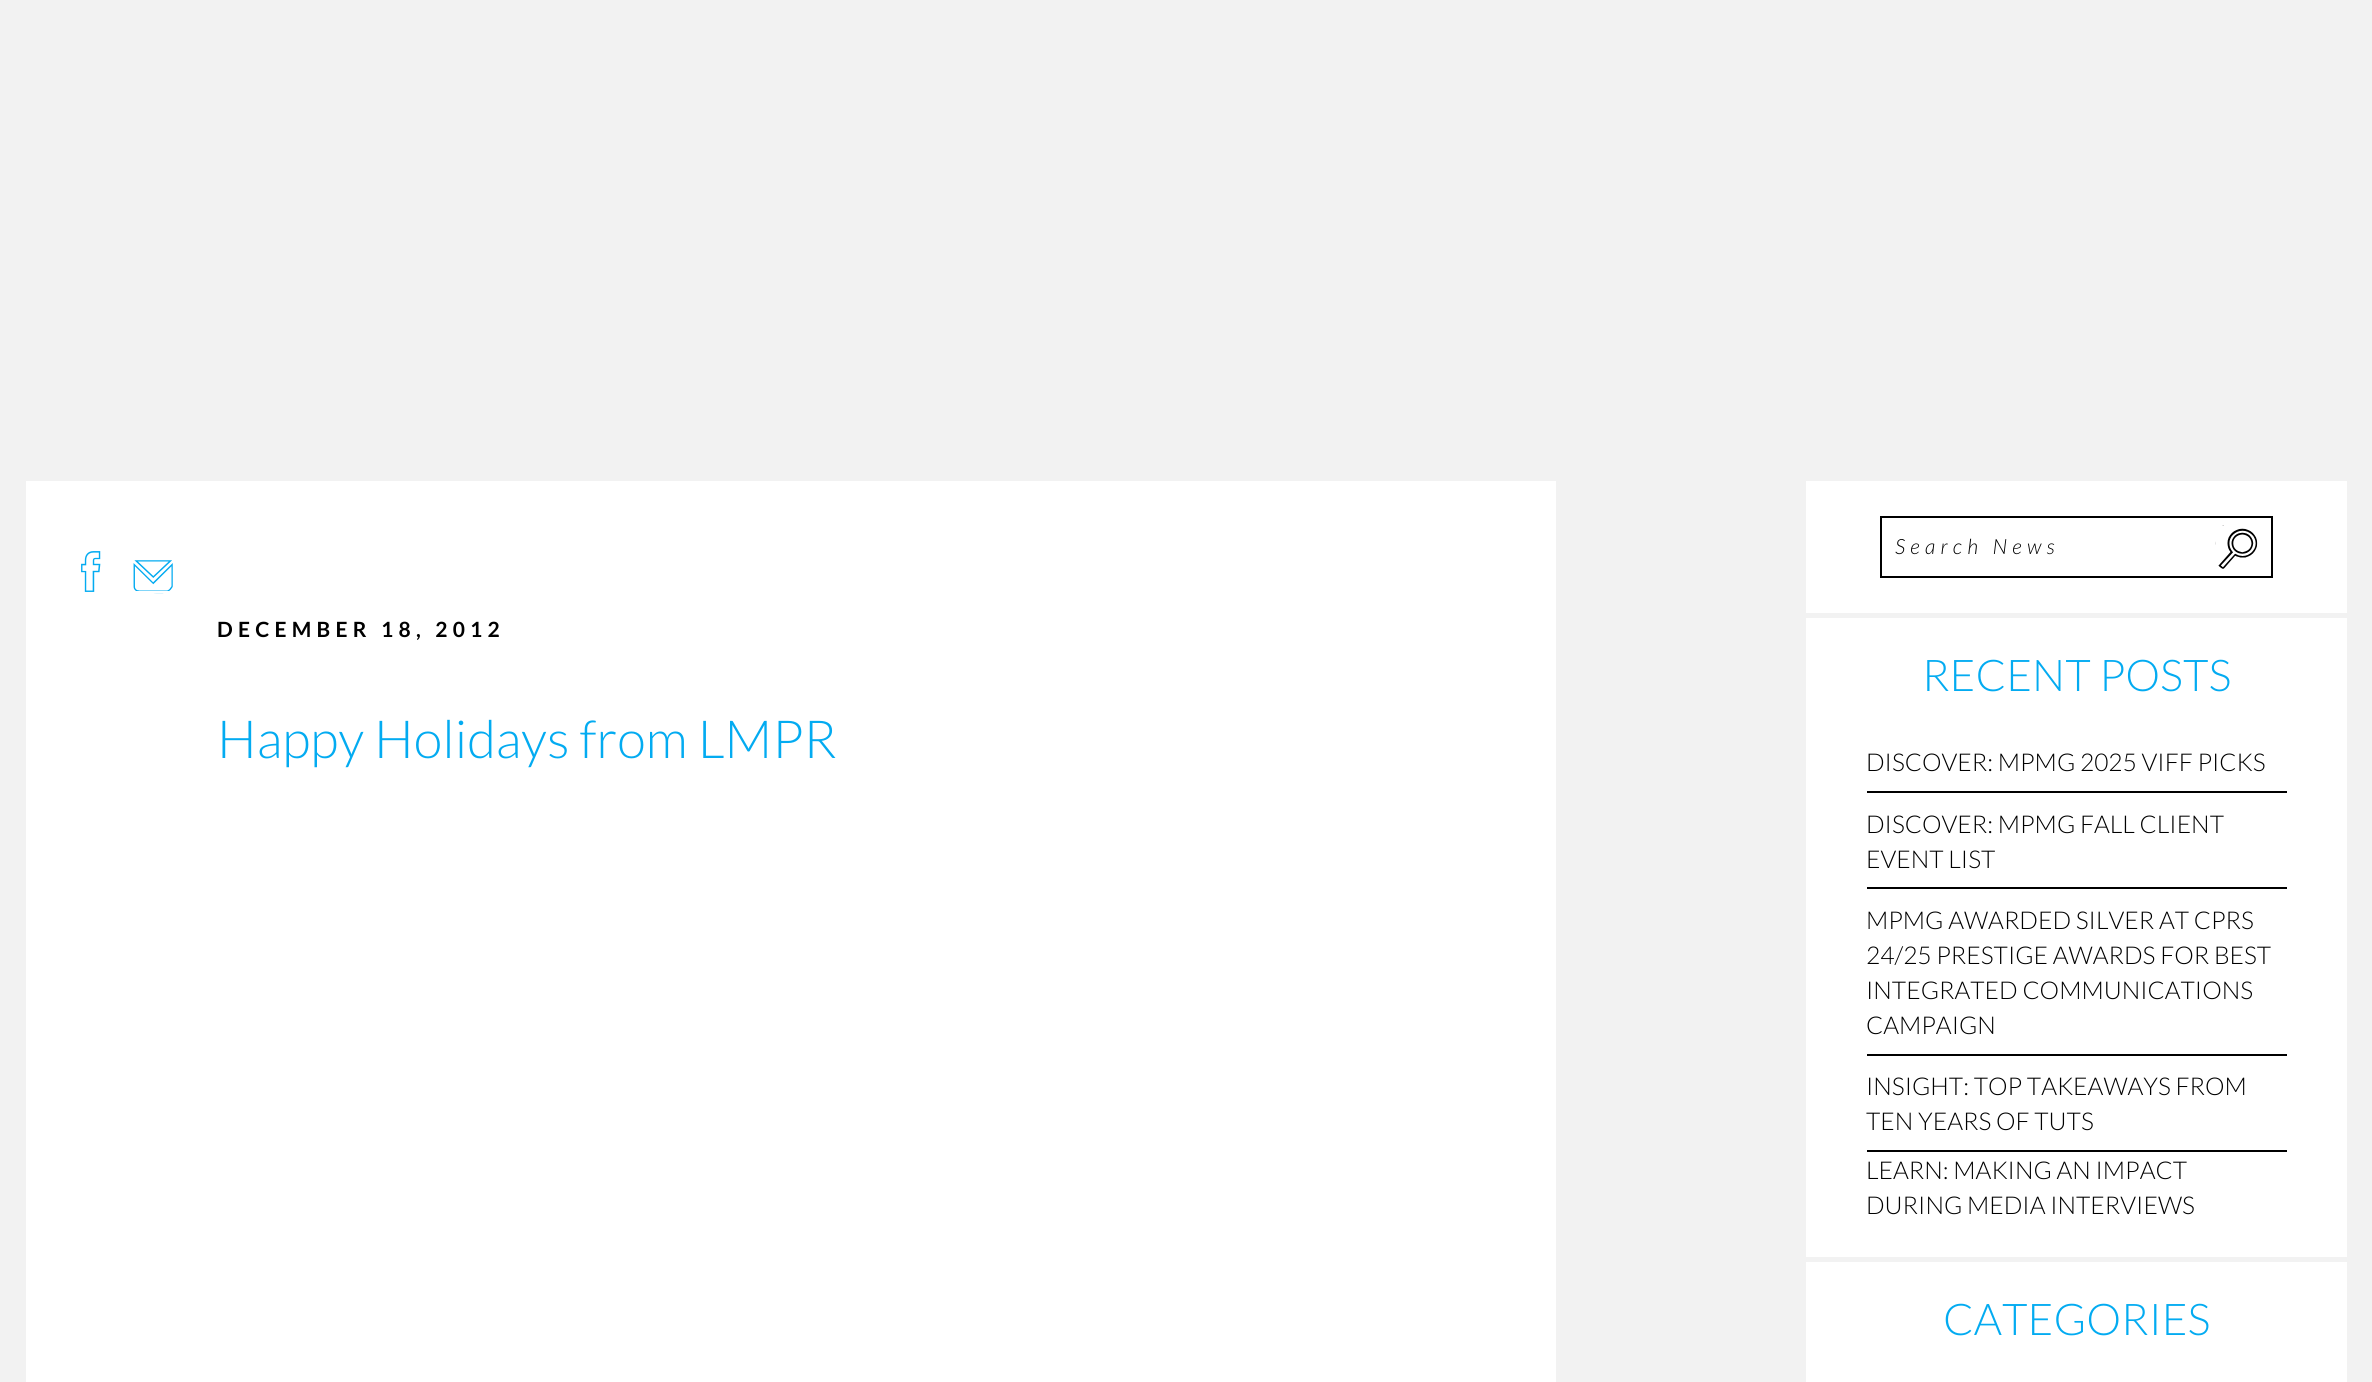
import math
import cairo

surface = cairo.ImageSurface(cairo.FORMAT_RGB24, 2372, 1382)
c = cairo.Context(surface)
options = cairo.FontOptions()
options.set_hint_metrics(cairo.HINT_METRICS_OFF)
options.set_hint_style(cairo.HINT_STYLE_NONE)
c.set_font_options(options)
c.set_miter_limit(4)
def C(code):
 c.set_source_rgb(*(v / 255 for v in bytes.fromhex(code[-6:])))
def F(family, size, italic, bold):
 c.select_font_face(family, cairo.FONT_SLANT_ITALIC if italic else cairo.FONT_SLANT_NORMAL, cairo.FONT_WEIGHT_BOLD if bold else cairo.FONT_WEIGHT_NORMAL)
 c.set_font_size(size)
def T(x, y, s):
 c.move_to(x, y)
 c.show_text(s)
def L(x, y, s, letter, word):
 c.move_to(x, y)
 for ch in s:
  c.show_text(ch)
  c.rel_move_to(letter + word * (ch == ' '), 0)
def R(x, y, w, h):
 c.rectangle(x, y, w, h)
 c.fill()
def I(path, x, y, w, h):
 c.save()
 c.set_source_surface(cairo.ImageSurface.create_from_png(path), x, y)
 c.rectangle(x, y, w, h)
 c.fill()
 c.restore()
C('f2f2f2')
c.paint()
C('ffffff')
R(26,481,1530,901)
I('1.png',81,551,20,41)
I('2.png',133,560,40,34)
F('Lato',21,0,1)
C('000000')
L(217,637,'DECEMBER 18, 2012',5.25,0)
F('Lato Light',52.5,0,0)
C('03abf1')
T(217,758,'Happy Holidays from LMPR')
C('ffffff')
R(1806,481,541,132)
c.rectangle(1881,517,391,60)
C('000000')
c.stroke()
F('Lato Light',21,1,0)
L(1895,554,'Search News',5.25,0)
I('3.png',2215,525,43,44)
C('ffffff')
R(1806,618,541,639)
F('Lato Light',43.75,0,0)
C('03abf1')
T(1922,691,'RECENT POSTS')
C('000000')
R(1867,791,420,2)
F('Lato Light',24.5,0,0)
T(1866,771,'DISCOVER: MPMG 2025 VIFF PICKS')
R(1867,887,420,2)
T(1866,833,'DISCOVER: MPMG FALL CLIENT')
T(1866,868,'EVENT LIST')
R(1867,1054,420,2)
T(1866,929,'MPMG AWARDED SILVER AT CPRS')
T(1866,964,'24/25 PRESTIGE AWARDS FOR BEST')
T(1866,999,'INTEGRATED COMMUNICATIONS')
T(1866,1034,'CAMPAIGN')
R(1867,1150,420,2)
T(1866,1095,'INSIGHT: TOP TAKEAWAYS FROM')
T(1866,1130,'TEN YEARS OF TUTS')
T(1866,1179,'LEARN: MAKING AN IMPACT')
T(1866,1214,'DURING MEDIA INTERVIEWS')
C('ffffff')
R(1806,1262,541,120)
F('Lato Light',43.75,0,0)
C('03abf1')
T(1943,1335,'CATEGORIES')
surface.write_to_png('o.png')
